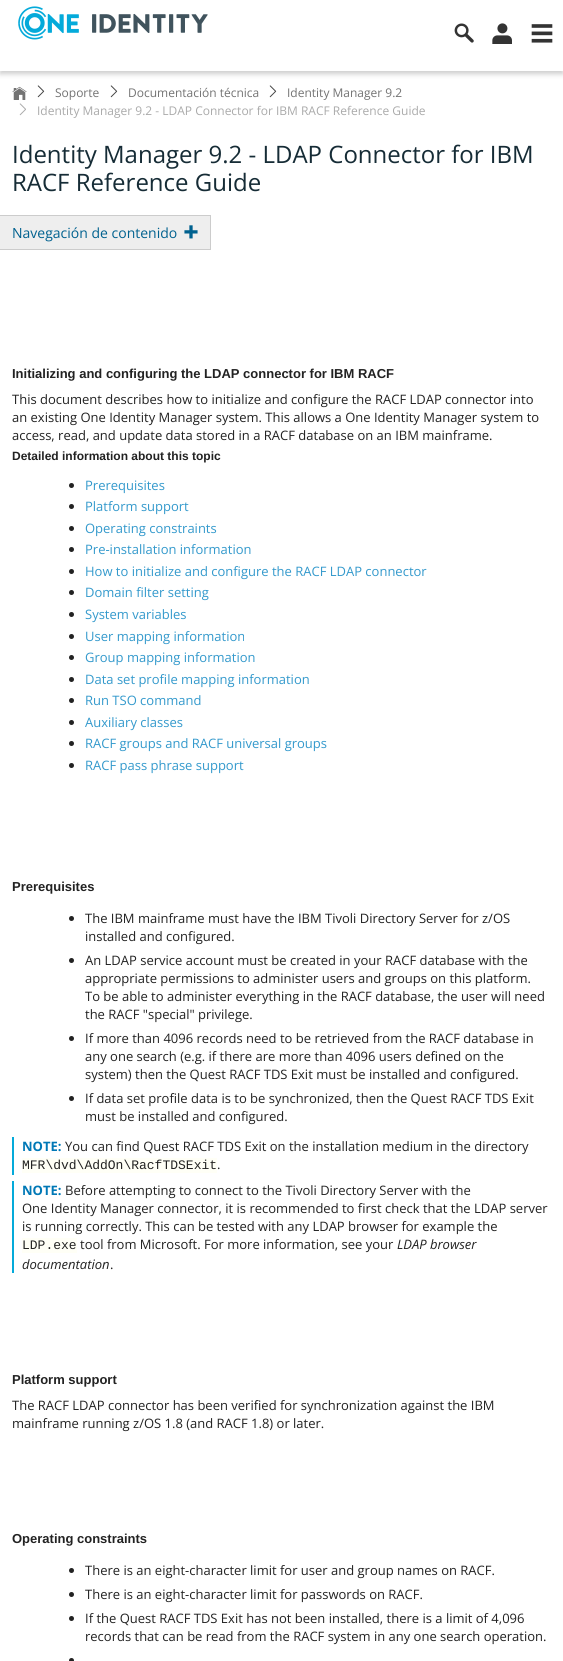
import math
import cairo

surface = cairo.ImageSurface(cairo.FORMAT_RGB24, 563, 1661)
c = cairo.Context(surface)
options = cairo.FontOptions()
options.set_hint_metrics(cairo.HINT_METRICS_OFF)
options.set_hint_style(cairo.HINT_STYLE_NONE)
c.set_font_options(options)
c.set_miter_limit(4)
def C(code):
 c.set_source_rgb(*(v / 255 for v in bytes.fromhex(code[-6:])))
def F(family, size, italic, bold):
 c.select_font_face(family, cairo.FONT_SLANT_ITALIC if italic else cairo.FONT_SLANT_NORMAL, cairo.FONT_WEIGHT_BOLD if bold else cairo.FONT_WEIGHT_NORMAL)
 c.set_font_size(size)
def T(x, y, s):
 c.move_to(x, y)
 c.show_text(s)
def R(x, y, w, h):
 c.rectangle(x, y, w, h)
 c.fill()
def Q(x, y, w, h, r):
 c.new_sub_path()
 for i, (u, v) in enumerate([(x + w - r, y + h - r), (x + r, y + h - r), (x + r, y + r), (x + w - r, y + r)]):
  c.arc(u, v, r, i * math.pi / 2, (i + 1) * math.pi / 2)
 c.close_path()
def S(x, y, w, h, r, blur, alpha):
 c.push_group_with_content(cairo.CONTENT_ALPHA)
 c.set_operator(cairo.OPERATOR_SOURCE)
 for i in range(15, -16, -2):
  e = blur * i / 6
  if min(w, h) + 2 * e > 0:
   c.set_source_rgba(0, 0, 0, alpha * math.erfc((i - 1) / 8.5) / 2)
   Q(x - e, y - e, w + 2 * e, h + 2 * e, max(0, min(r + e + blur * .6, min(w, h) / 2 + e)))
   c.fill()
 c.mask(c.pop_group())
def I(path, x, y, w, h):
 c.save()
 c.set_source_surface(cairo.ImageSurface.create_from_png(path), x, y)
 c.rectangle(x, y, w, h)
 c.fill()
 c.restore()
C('ffffff')
c.paint()
c.save()
c.rectangle(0,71,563,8)
c.clip()
C('cdcdcd')
S(0,2,563,72,0,2.5,1)
c.restore()
I('1.png',18,6,190,34)
I('2.png',454,23,20,20)
I('3.png',492,23,20,21)
I('4.png',531,24,22,19)
I('5.png',12,86,15,14)
I('6.png',37,85,8,13)
F('Open Sans',12,0,0)
C('737373')
T(55,97,'Soporte')
I('6.png',110,85,8,13)
T(128,97,'Documentación técnica')
I('6.png',269,85,8,13)
T(287,97,'Identity Manager 9.2')
I('7.png',19,103,7,13)
C('aaaaaa')
T(37,115,'Identity Manager 9.2 - LDAP Connector for IBM RACF Reference Guide')
F('Open Sans',24,0,0)
C('162c36')
T(12,163,'Identity Manager 9.2 - LDAP Connector for IBM')
T(12,191,'RACF Reference Guide')
C('eeeeee')
c.rectangle(-.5,215.5,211,34)
c.fill_preserve()
C('cccccc')
c.set_line_width(1)
c.stroke()
F('Open Sans',14,0,0)
C('00618f')
T(12,238,'Navegación de contenido')
I('8.png',184,225,14,14)
F('Liberation Sans',13,0,1)
C('222222')
T(12,378,'Initializing and configuring the LDAP connector for IBM RACF')
F('Open Sans',13,0,0)
T(12,404,'This document describes how to initialize and configure the RACF LDAP connector into')
T(12,422,'an existing One Identity Manager system. This allows a One Identity Manager system to')
T(12,440,'access, read, and update data stored in a RACF database on an IBM mainframe.')
F('Liberation Sans',12,0,1)
T(12,460,'Detailed information about this topic')
c.new_path()
c.arc(71.5,485.5,2.5,0,2 * math.pi)
c.fill()
F('Open Sans',13,0,0)
C('3399cc')
T(85,490,'Prerequisites')
C('222222')
c.new_path()
c.arc(71.5,506.5,2.5,0,2 * math.pi)
c.fill()
C('3399cc')
T(85,511,'Platform support')
C('222222')
c.new_path()
c.arc(71.5,528.5,2.5,0,2 * math.pi)
c.fill()
C('3399cc')
T(85,533,'Operating constraints')
C('222222')
c.new_path()
c.arc(71.5,549.5,2.5,0,2 * math.pi)
c.fill()
C('3399cc')
T(85,554,'Pre-installation information')
C('222222')
c.new_path()
c.arc(71.5,571.5,2.5,0,2 * math.pi)
c.fill()
C('3399cc')
T(85,576,'How to initialize and configure the RACF LDAP connector')
C('222222')
c.new_path()
c.arc(71.5,592.5,2.5,0,2 * math.pi)
c.fill()
C('3399cc')
T(85,597,'Domain filter setting')
C('222222')
c.new_path()
c.arc(71.5,614.5,2.5,0,2 * math.pi)
c.fill()
C('3399cc')
T(85,619,'System variables')
C('222222')
c.new_path()
c.arc(71.5,636.5,2.5,0,2 * math.pi)
c.fill()
C('3399cc')
T(85,641,'User mapping information')
C('222222')
c.new_path()
c.arc(71.5,657.5,2.5,0,2 * math.pi)
c.fill()
C('3399cc')
T(85,662,'Group mapping information')
C('222222')
c.new_path()
c.arc(71.5,679.5,2.5,0,2 * math.pi)
c.fill()
C('3399cc')
T(85,684,'Data set profile mapping information')
C('222222')
c.new_path()
c.arc(71.5,700.5,2.5,0,2 * math.pi)
c.fill()
C('3399cc')
T(85,705,'Run TSO command')
C('222222')
c.new_path()
c.arc(71.5,722.5,2.5,0,2 * math.pi)
c.fill()
C('3399cc')
T(85,727,'Auxiliary classes')
C('222222')
c.new_path()
c.arc(71.5,743.5,2.5,0,2 * math.pi)
c.fill()
C('3399cc')
T(85,748,'RACF groups and RACF universal groups')
C('222222')
c.new_path()
c.arc(71.5,765.5,2.5,0,2 * math.pi)
c.fill()
C('3399cc')
T(85,770,'RACF pass phrase support')
F('Liberation Sans',13,0,1)
C('222222')
T(12,891,'Prerequisites')
c.new_path()
c.arc(71.5,918.5,2.5,0,2 * math.pi)
c.fill()
F('Open Sans',13,0,0)
T(85,923,'The IBM mainframe must have the IBM Tivoli Directory Server for z/OS')
T(85,941,'installed and configured.')
c.new_path()
c.arc(71.5,960.5,2.5,0,2 * math.pi)
c.fill()
T(85,965,'An LDAP service account must be created in your RACF database with the')
T(85,983,'appropriate permissions to administer users and groups on this platform.')
T(85,1001,'To be able to administer everything in the RACF database, the user will need')
T(85,1019,'the RACF "special" privilege.')
c.new_path()
c.arc(71.5,1038.5,2.5,0,2 * math.pi)
c.fill()
T(85,1043,'If more than 4096 records need to be retrieved from the RACF database in')
T(85,1061,'any one search (e.g. if there are more than 4096 users defined on the')
T(85,1079,'system) then the Quest RACF TDS Exit must be installed and configured.')
c.new_path()
c.arc(71.5,1098.5,2.5,0,2 * math.pi)
c.fill()
T(85,1103,'If data set profile data is to be synchronized, then the Quest RACF TDS Exit')
T(85,1121,'must be installed and configured.')
C('04aada')
R(12,1137,2,38)
F('Open Sans',13,0,1)
C('0078b6')
T(22,1151,'NOTE:')
F('Open Sans',13,0,0)
C('222222')
T(65,1151,'You can find Quest RACF TDS Exit on the installation medium in the directory')
C('fffff6')
R(22,1158,195,15)
F('Liberation Mono',13,0,0)
C('222222')
T(22,1169,'MFR\\dvd\\AddOn\\RacfTDSExit')
F('Open Sans',13,0,0)
T(217,1169,'.')
C('04aada')
R(12,1181,2,92)
F('Open Sans',13,0,1)
C('0078b6')
T(22,1195,'NOTE:')
F('Open Sans',13,0,0)
C('222222')
T(65,1195,'Before attempting to connect to the Tivoli Directory Server with the')
T(22,1213,'One Identity Manager connector, it is recommended to first check that the LDAP server')
T(22,1231,'is running correctly. This can be tested with any LDAP browser for example the')
C('fffff6')
R(22,1238,55,15)
F('Liberation Mono',13,0,0)
C('222222')
T(22,1249,'LDP.exe')
F('Open Sans',13,0,0)
T(80,1249,'tool from Microsoft. For more information, see your')
F('Open Sans',13,1,0)
T(397,1249,'LDAP browser')
T(22,1269,'documentation')
F('Open Sans',13,0,0)
T(110,1269,'.')
F('Liberation Sans',13,0,1)
T(12,1384,'Platform support')
F('Open Sans',13,0,0)
T(12,1410,'The RACF LDAP connector has been verified for synchronization against the IBM')
T(12,1428,'mainframe running z/OS 1.8 (and RACF 1.8) or later.')
F('Liberation Sans',13,0,1)
T(12,1543,'Operating constraints')
c.new_path()
c.arc(71.5,1570.5,2.5,0,2 * math.pi)
c.fill()
F('Open Sans',13,0,0)
T(85,1575,'There is an eight-character limit for user and group names on RACF.')
c.new_path()
c.arc(71.5,1594.5,2.5,0,2 * math.pi)
c.fill()
T(85,1599,'There is an eight-character limit for passwords on RACF.')
c.new_path()
c.arc(71.5,1618.5,2.5,0,2 * math.pi)
c.fill()
T(85,1623,'If the Quest RACF TDS Exit has not been installed, there is a limit of 4,096')
T(85,1641,'records that can be read from the RACF system in any one search operation.')
c.new_path()
c.arc(71.5,1660.5,2.5,0,2 * math.pi)
c.fill()
surface.write_to_png('o.png')
